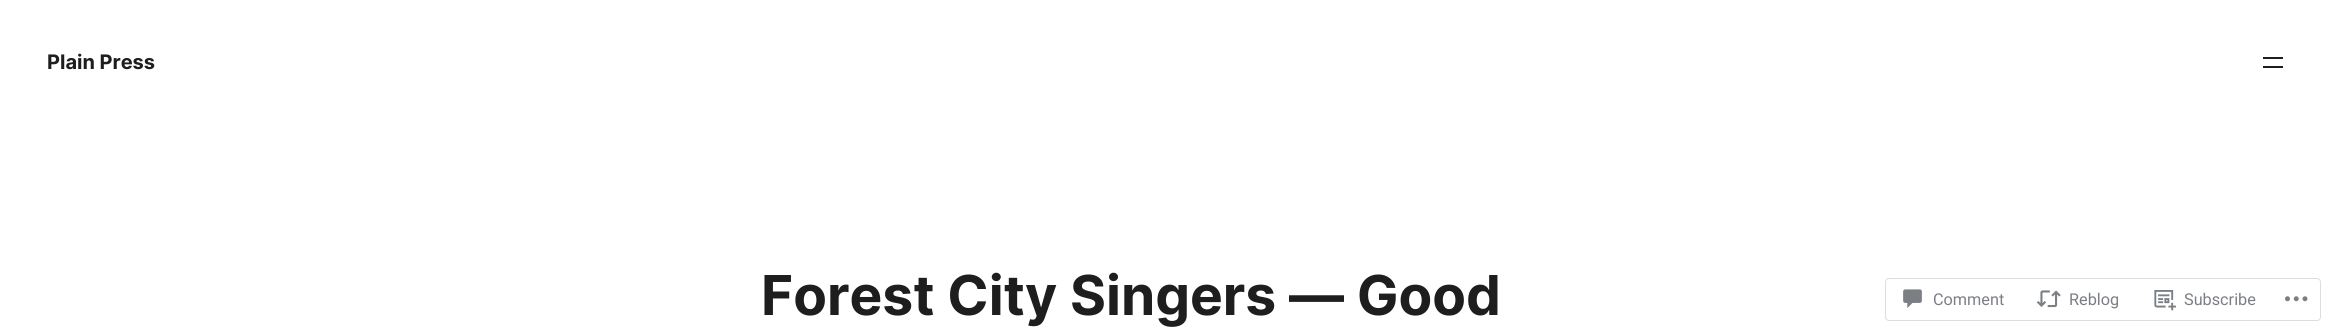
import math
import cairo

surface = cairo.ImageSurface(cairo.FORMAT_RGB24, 2333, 333)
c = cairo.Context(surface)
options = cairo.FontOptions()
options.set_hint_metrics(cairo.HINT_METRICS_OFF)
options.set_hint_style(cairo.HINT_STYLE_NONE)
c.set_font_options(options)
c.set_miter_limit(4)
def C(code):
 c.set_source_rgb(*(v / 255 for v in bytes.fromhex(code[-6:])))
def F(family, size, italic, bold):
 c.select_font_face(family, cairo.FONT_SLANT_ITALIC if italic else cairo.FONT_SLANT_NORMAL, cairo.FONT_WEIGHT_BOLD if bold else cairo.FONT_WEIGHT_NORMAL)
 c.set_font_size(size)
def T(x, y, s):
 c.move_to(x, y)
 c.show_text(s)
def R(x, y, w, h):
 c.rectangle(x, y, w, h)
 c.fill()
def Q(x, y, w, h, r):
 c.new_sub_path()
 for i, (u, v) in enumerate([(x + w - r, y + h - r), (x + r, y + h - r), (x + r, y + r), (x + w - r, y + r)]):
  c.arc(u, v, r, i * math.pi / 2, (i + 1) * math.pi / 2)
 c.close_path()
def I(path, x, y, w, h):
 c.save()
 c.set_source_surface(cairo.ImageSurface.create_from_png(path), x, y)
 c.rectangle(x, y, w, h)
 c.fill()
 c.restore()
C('ffffff')
c.paint()
F('Inter',20,0,1)
C('1e1e1e')
T(47,69,'Plain Press')
R(2263,57,20,2)
R(2263,66,20,2)
F('Inter',55,0,1)
T(761,315,'Forest City Singers — Good')
Q(1885.5,278.5,435,42,3.5)
C('dddddf')
c.set_line_width(1)
c.stroke()
I('1.png',1903,289,19,19)
F('Roboto',16.25,0,0)
C('7b7f85')
T(1933,305,'Comment')
I('2.png',2036,290,25,18)
T(2069,305,'Reblog')
I('3.png',2154,290,22,21)
T(2184,305,'Subscribe')
I('4.png',2285,296,23,6)
surface.write_to_png('o.png')
